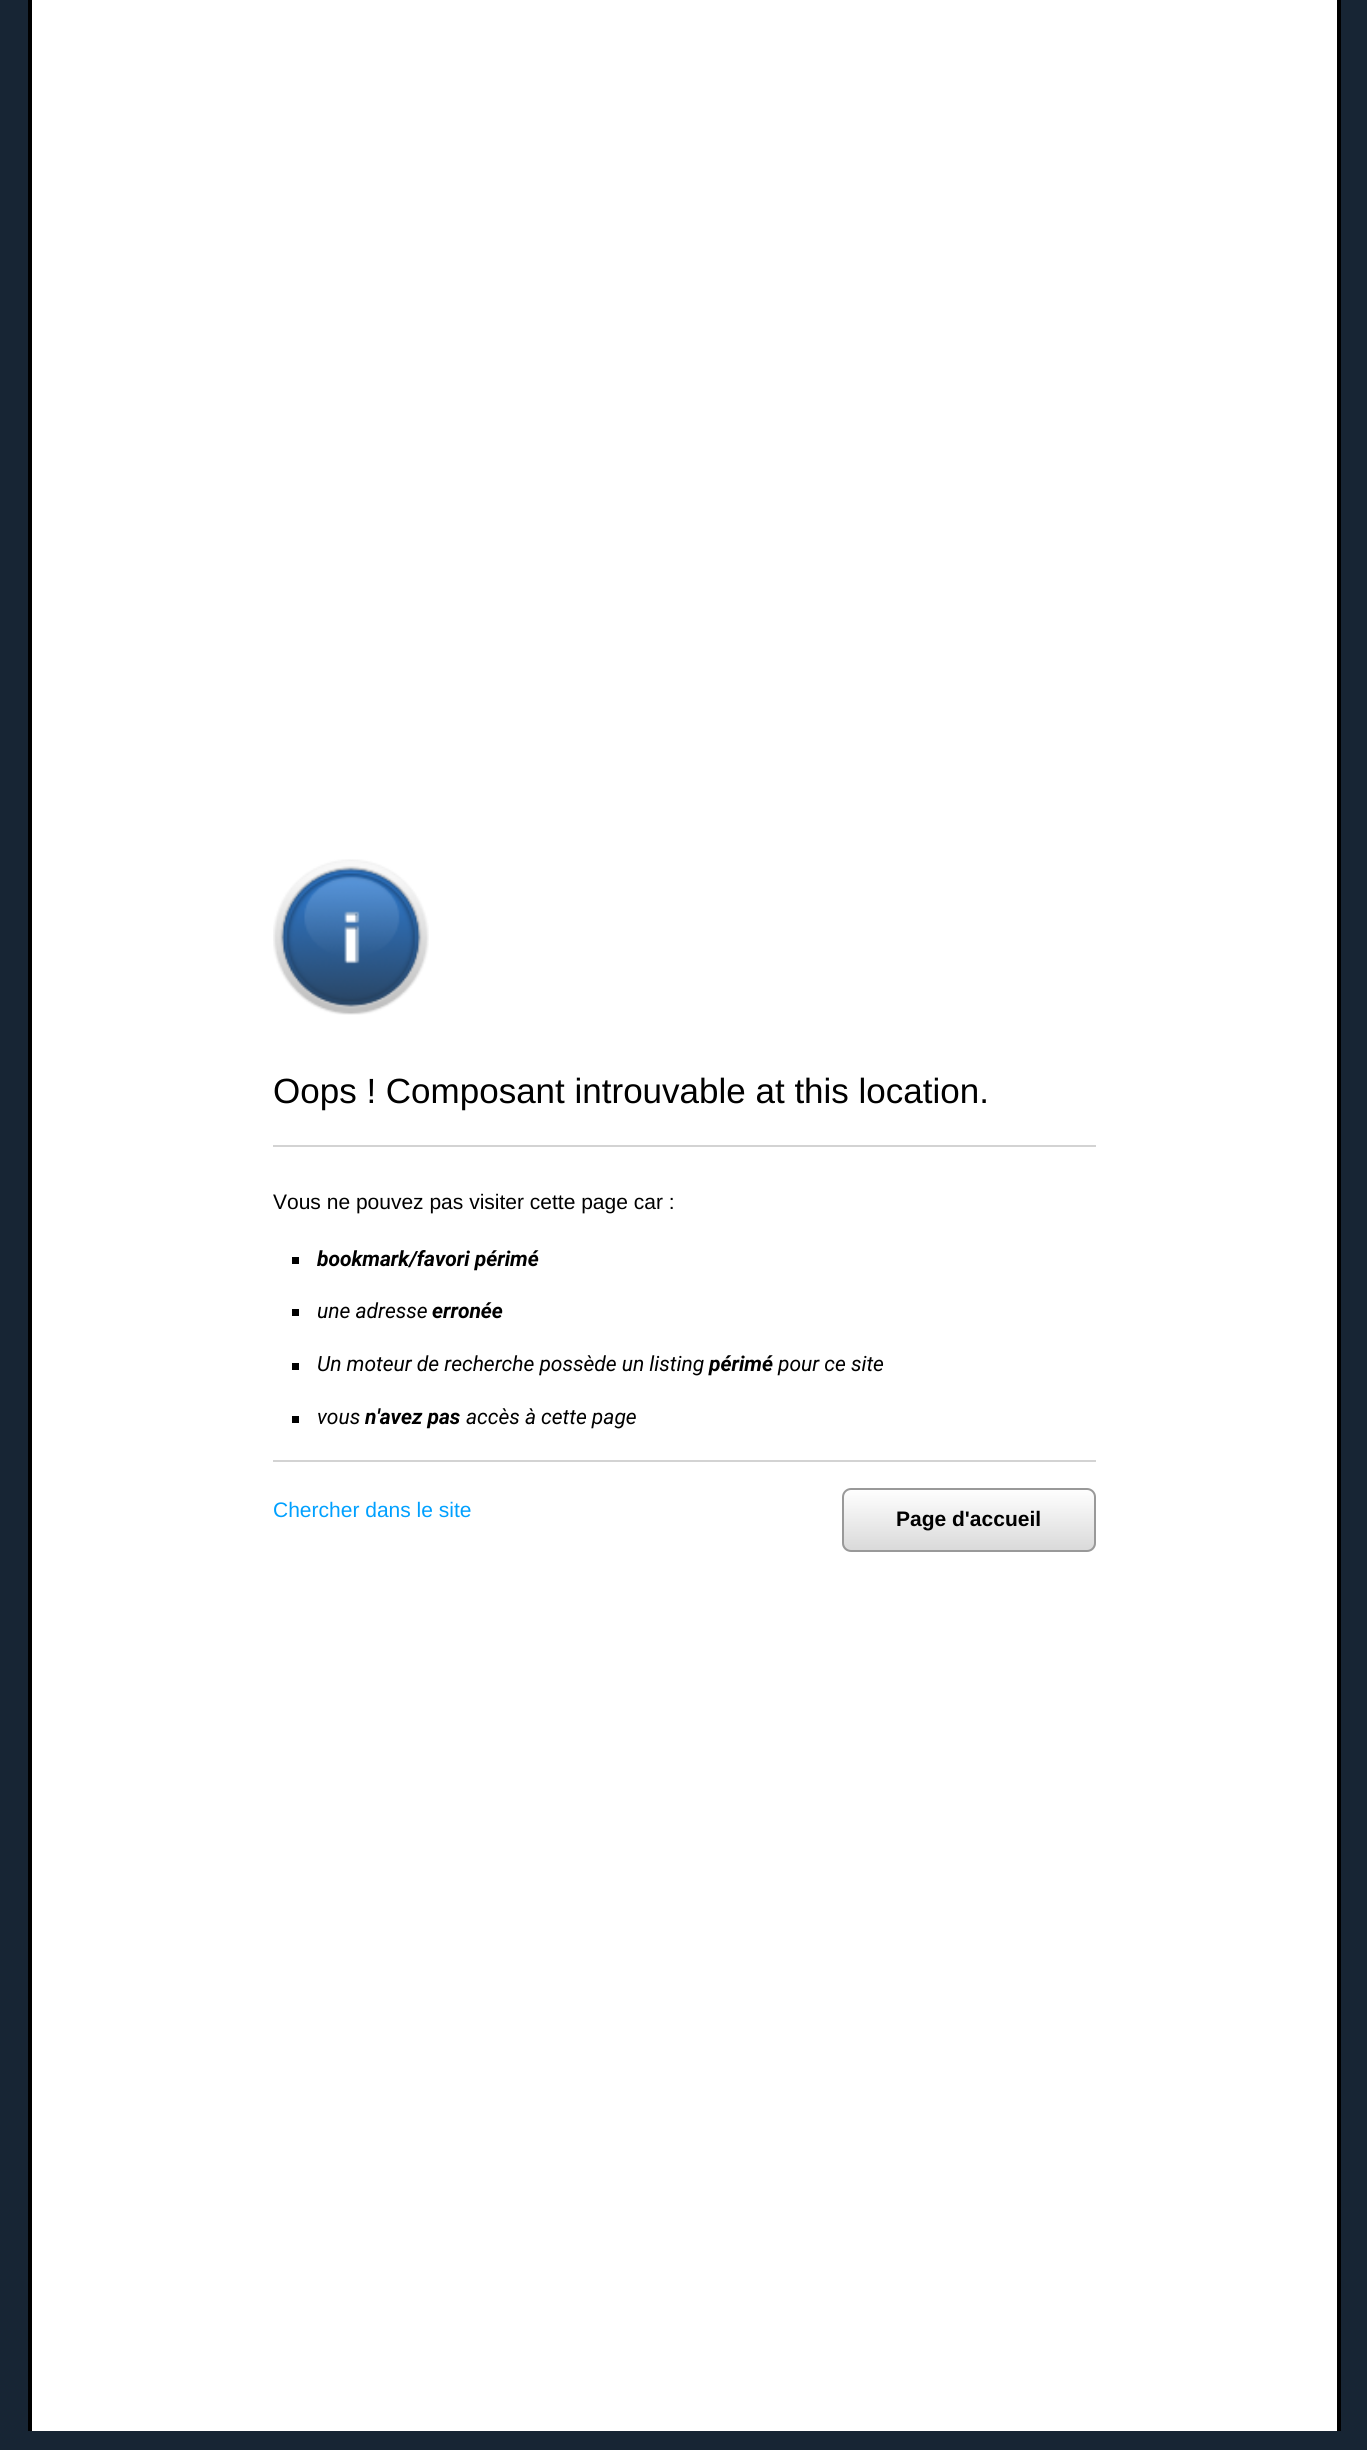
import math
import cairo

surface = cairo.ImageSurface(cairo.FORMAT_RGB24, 1367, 2450)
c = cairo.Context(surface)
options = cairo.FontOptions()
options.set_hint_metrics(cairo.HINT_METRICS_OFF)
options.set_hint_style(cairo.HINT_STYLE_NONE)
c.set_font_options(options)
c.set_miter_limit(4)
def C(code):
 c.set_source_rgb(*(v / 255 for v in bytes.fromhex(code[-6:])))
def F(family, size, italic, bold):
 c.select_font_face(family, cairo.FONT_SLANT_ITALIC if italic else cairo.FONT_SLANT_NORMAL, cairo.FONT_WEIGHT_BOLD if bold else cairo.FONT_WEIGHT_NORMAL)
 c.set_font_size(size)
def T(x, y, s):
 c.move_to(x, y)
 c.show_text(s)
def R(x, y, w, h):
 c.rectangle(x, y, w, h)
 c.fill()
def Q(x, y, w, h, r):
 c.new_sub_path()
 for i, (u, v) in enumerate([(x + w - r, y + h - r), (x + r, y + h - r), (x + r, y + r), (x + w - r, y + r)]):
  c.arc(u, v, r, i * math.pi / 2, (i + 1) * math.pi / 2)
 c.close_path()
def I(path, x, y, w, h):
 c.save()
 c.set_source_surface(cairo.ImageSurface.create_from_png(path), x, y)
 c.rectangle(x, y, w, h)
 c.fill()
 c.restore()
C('172534')
c.paint()
C('ffffff')
R(32,0,1305,2431)
C('000000')
R(1337,0,4,2431)
R(28,0,4,2431)
I('1.png',273,859,156,156)
F('Liberation Sans',35,0,0)
T(273,1103,'Oops ! Composant introuvable at this location.')
C('d3d3d3')
R(273,1145,823,2)
R(273,1460,823,2)
F('Liberation Sans',21,0,0)
C('000000')
T(273,1209,'Vous ne pouvez pas visiter cette page car :')
R(292,1257,7,7)
F('Roboto',21,1,1)
T(317,1266,'bookmark/favori périmé')
R(292,1309,7,7)
F('Roboto',21,1,0)
T(317,1318,'une adresse')
F('Roboto',21,1,1)
T(432,1318,'erronée')
R(292,1363,7,7)
F('Roboto',21,1,0)
T(317,1371,'Un moteur de recherche possède un listing')
F('Roboto',21,1,1)
T(709,1371,'périmé')
F('Roboto',21,1,0)
T(778,1371,'pour ce site')
R(292,1416,7,7)
T(317,1424,'vous')
F('Roboto',21,1,1)
T(365,1424,'n\'avez pas')
F('Roboto',21,1,0)
T(466,1424,'accès à cette page')
F('Liberation Sans',21,0,0)
C('00a0ff')
T(273,1517,'Chercher dans le site')
c.save()
Q(842,1488,254,64,9)
c.clip()
gradient = cairo.LinearGradient(969,1489,969,1551)
gradient.add_color_stop_rgba(0,1,1,1,1)
gradient.add_color_stop_rgba(1,0.851,0.851,0.851,1)
c.set_source(gradient)
R(842,1489,254,62)
c.restore()
Q(843,1489,252,62,8)
C('999999')
c.stroke()
F('Liberation Sans',21,0,1)
C('000000')
T(896,1526,'Page d\'accueil')
surface.write_to_png('o.png')
